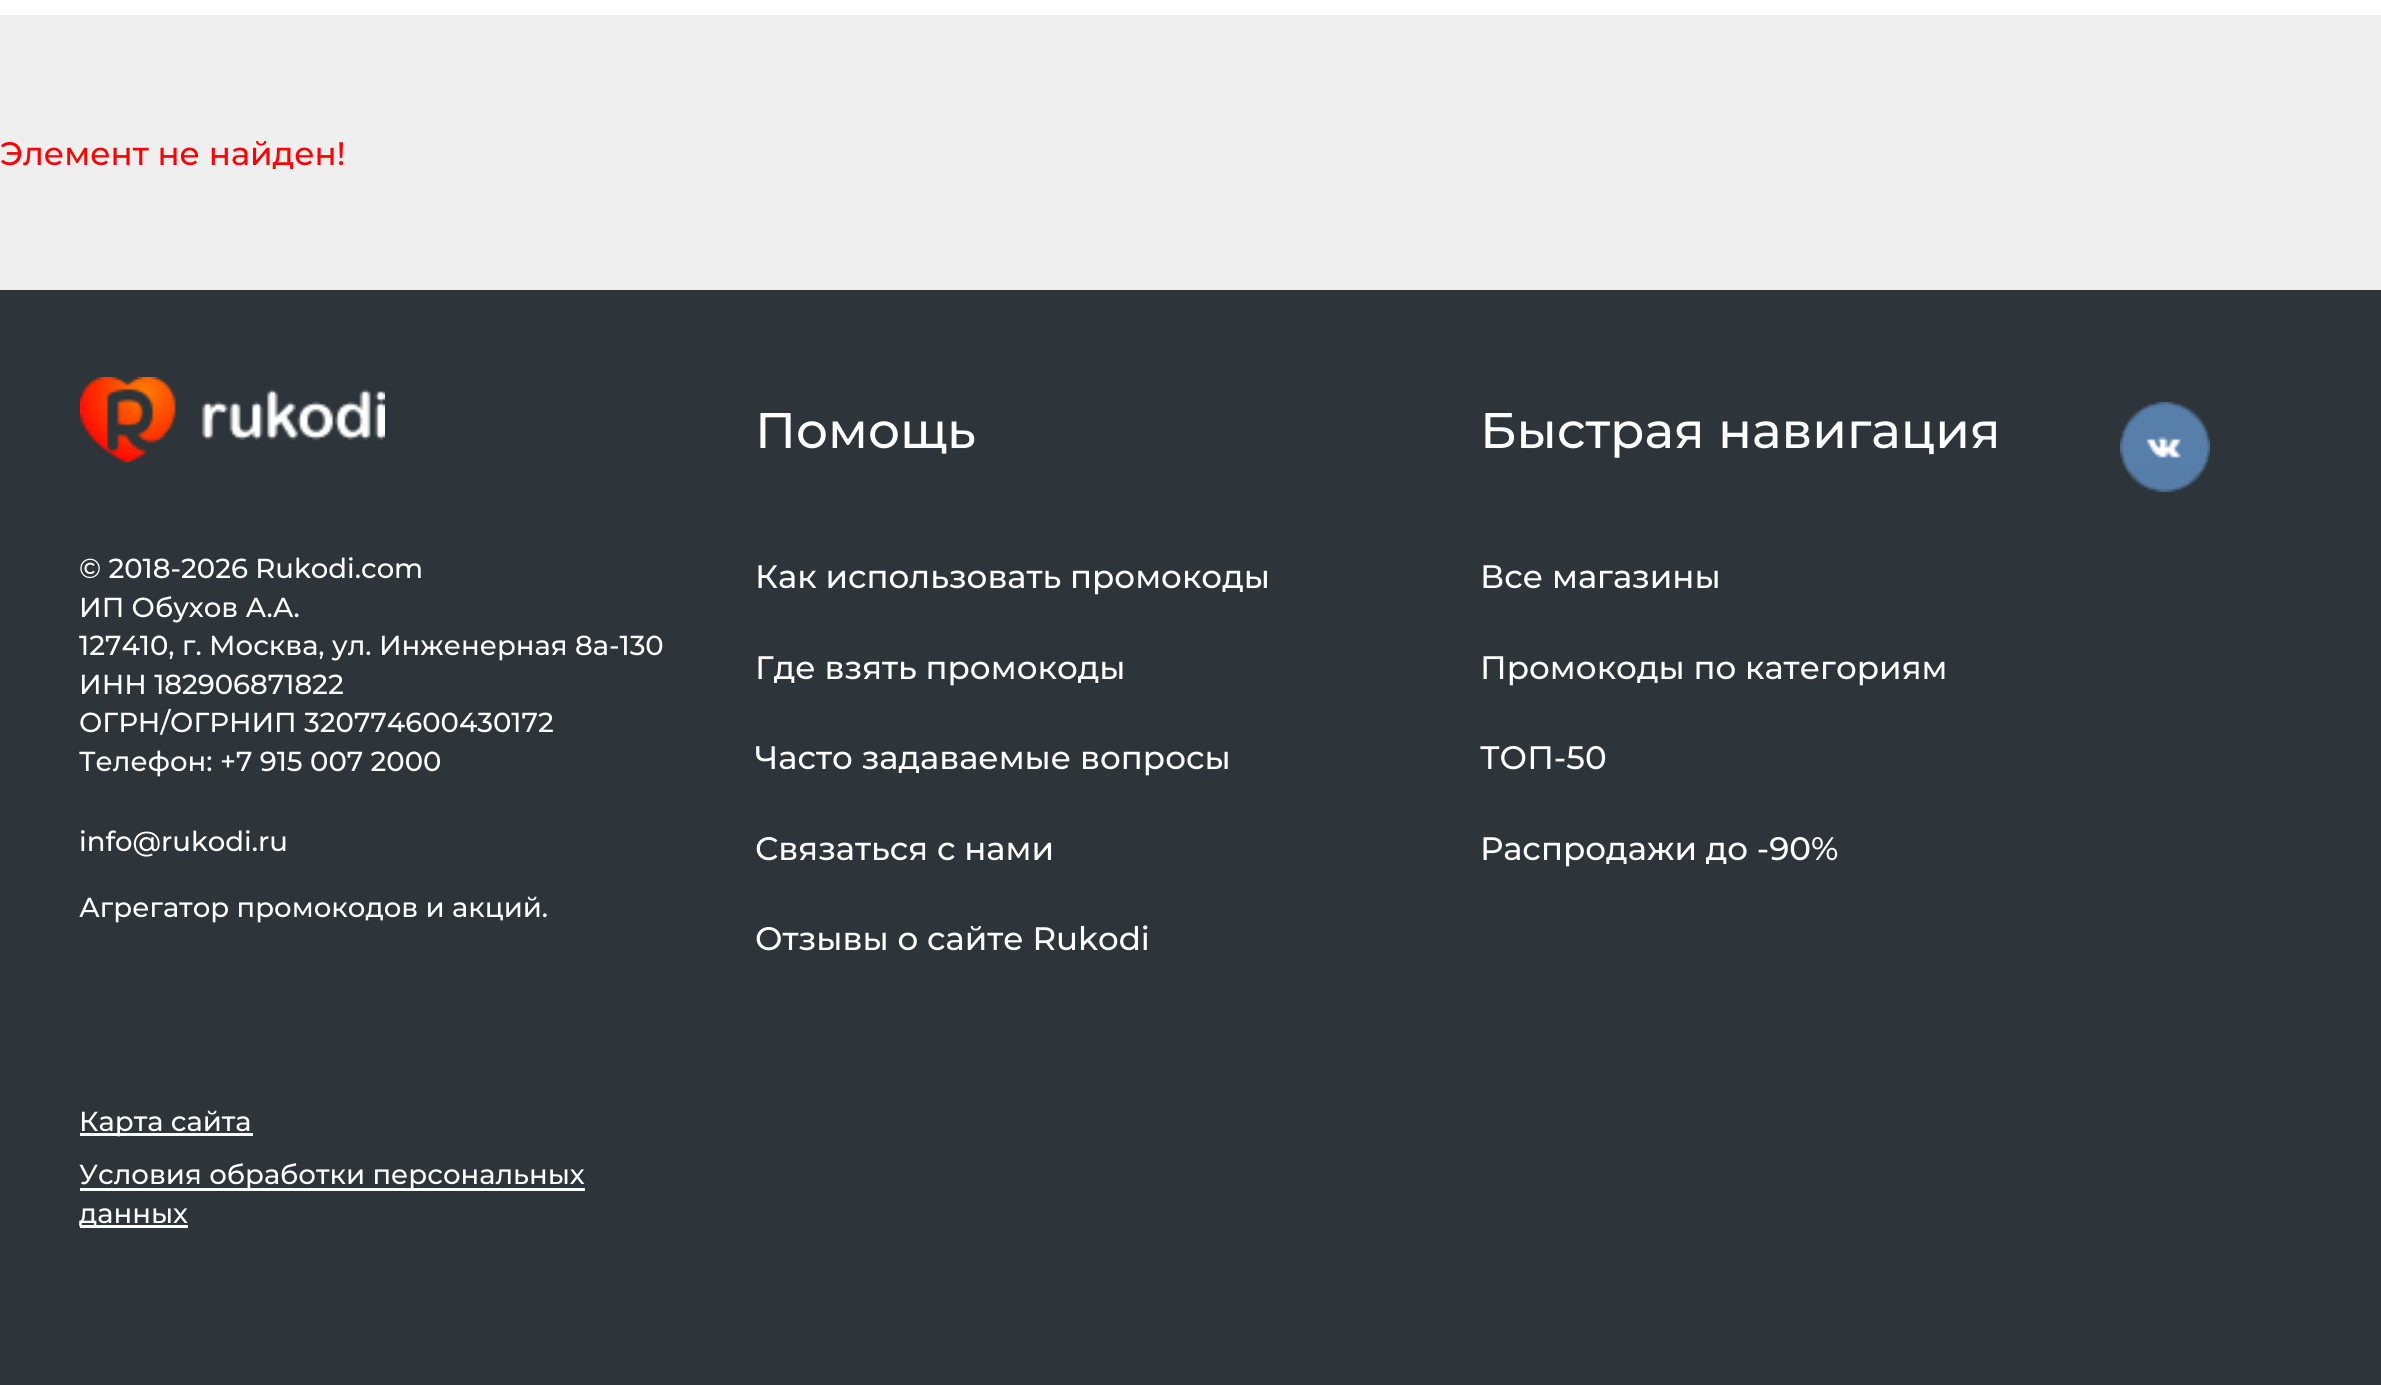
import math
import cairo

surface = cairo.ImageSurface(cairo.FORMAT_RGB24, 2381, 1385)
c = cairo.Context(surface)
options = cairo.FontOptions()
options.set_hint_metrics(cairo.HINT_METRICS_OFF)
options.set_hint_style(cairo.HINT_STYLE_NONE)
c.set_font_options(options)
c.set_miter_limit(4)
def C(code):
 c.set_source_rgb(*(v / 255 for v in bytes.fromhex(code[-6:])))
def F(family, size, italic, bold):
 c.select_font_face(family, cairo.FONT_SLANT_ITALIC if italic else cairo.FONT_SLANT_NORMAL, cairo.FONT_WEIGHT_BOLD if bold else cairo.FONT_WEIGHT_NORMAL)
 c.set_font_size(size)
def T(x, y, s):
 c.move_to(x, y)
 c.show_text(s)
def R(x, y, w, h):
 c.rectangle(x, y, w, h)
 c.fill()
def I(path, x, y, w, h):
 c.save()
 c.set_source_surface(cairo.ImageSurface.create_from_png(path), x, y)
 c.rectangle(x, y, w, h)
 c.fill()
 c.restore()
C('ffffff')
c.paint()
C('efefef')
R(0,15,2381,275)
F('Montserrat Medium',32.5,0,0)
C('ff0000')
T(0,165,'Элемент не найден!')
C('2d343a')
R(0,290,2381,1095)
I('1.png',80,377,305,85)
F('Montserrat Medium',27.5,0,0)
C('ffffff')
T(79,578,'© 2018-2026 Rukodi.com')
T(79,617,'ИП Обухов А.А.')
T(79,655,'127410, г. Москва, ул. Инженерная 8а-130')
T(79,694,'ИНН 182906871822')
T(79,732,'ОГРН/ОГРНИП 320774600430172')
T(79,771,'Телефон: +7 915 007 2000')
T(79,851,'info@rukodi.ru')
T(79,917,'Агрегатор промокодов и акций.')
R(80,1133,173,3)
T(79,1131,'Карта сайта')
R(80,1188,505,3)
T(79,1184,'Условия обработки персональных')
R(80,1225,108,3)
T(79,1223,'данных')
F('Montserrat Medium',50,0,0)
T(755,448,'Помощь')
F('Montserrat Medium',32.5,0,0)
T(755,588,'Как использовать промокоды')
T(755,679,'Где взять промокоды')
T(755,769,'Часто задаваемые вопросы')
T(755,860,'Связаться с нами')
T(755,950,'Отзывы о сайте Rukodi')
F('Montserrat Medium',50,0,0)
T(1480,448,'Быстрая навигация')
F('Montserrat Medium',32.5,0,0)
T(1480,588,'Все магазины')
T(1480,679,'Промокоды по категориям')
T(1480,769,'ТОП-50')
T(1480,860,'Распродажи до -90%')
I('2.png',2120,402,90,90)
surface.write_to_png('o.png')
